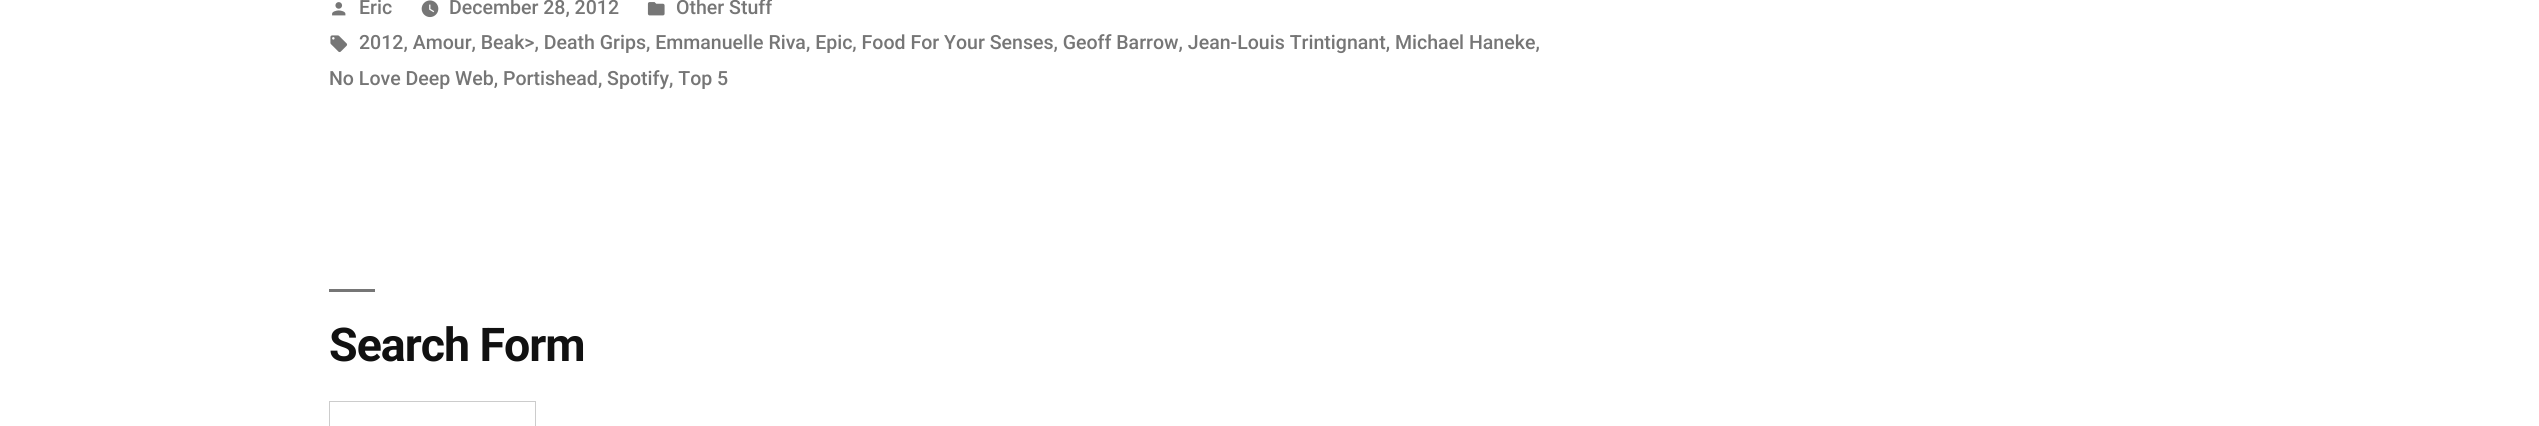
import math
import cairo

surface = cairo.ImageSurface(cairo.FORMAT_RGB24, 2539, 426)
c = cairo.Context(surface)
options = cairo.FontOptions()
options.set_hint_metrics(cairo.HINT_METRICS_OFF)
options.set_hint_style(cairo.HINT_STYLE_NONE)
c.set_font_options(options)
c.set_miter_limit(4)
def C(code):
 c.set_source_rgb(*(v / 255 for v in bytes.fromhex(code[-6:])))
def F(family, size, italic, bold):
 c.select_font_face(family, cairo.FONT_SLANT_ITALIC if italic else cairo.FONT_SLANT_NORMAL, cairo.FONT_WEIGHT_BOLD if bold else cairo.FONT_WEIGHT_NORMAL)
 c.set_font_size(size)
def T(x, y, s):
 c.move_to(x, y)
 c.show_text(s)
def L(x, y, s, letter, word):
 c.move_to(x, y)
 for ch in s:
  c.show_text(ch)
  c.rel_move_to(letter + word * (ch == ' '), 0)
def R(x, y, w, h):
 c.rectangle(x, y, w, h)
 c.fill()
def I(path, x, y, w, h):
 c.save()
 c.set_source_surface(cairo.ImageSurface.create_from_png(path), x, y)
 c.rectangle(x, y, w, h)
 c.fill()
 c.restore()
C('ffffff')
c.paint()
I('1.png',332,2,14,14)
F('Roboto Medium',19.55,0,0)
C('767676')
T(359,14,'Eric')
I('2.png',421,0,18,18)
T(449,14,'December 28, 2012')
I('3.png',647,2,18,14)
T(676,14,'Other Stuff')
I('4.png',330,35,18,18)
T(359,49,'2012, Amour, Beak>, Death Grips, Emmanuelle Riva, Epic, Food For Your Senses, Geoff Barrow, Jean-Louis Trintignant, Michael Haneke,')
T(329,85,'No Love Deep Web, Portishead, Spotify, Top 5')
R(329,289,46,3)
F('Roboto',46.5,0,1)
C('111111')
L(329,361,'Search Form',-1,0)
c.rectangle(329.5,401.5,206,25)
C('cccccc')
c.set_line_width(1)
c.stroke()
surface.write_to_png('o.png')
